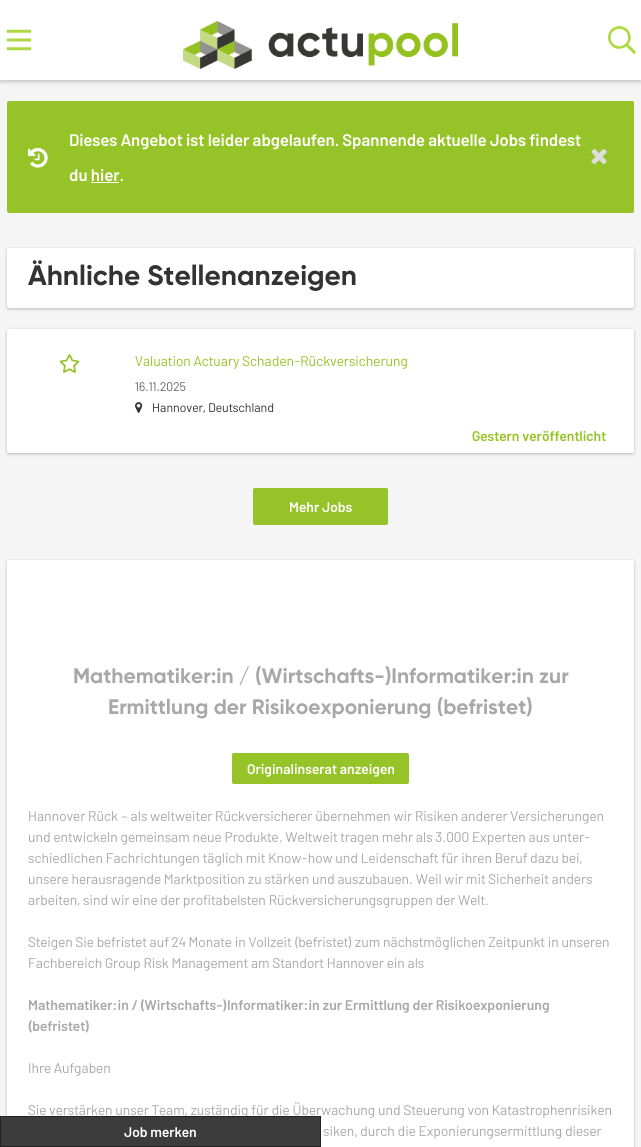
import math
import cairo

surface = cairo.ImageSurface(cairo.FORMAT_RGB24, 641, 1147)
c = cairo.Context(surface)
options = cairo.FontOptions()
options.set_hint_metrics(cairo.HINT_METRICS_OFF)
options.set_hint_style(cairo.HINT_STYLE_NONE)
c.set_font_options(options)
c.set_miter_limit(4)
def C(code):
 c.set_source_rgb(*(v / 255 for v in bytes.fromhex(code[-6:])))
def F(family, size, italic, bold):
 c.select_font_face(family, cairo.FONT_SLANT_ITALIC if italic else cairo.FONT_SLANT_NORMAL, cairo.FONT_WEIGHT_BOLD if bold else cairo.FONT_WEIGHT_NORMAL)
 c.set_font_size(size)
def T(x, y, s):
 c.move_to(x, y)
 c.show_text(s)
def R(x, y, w, h):
 c.rectangle(x, y, w, h)
 c.fill()
def Q(x, y, w, h, r):
 c.new_sub_path()
 for i, (u, v) in enumerate([(x + w - r, y + h - r), (x + r, y + h - r), (x + r, y + r), (x + w - r, y + r)]):
  c.arc(u, v, r, i * math.pi / 2, (i + 1) * math.pi / 2)
 c.close_path()
def S(x, y, w, h, r, blur, alpha):
 c.push_group_with_content(cairo.CONTENT_ALPHA)
 c.set_operator(cairo.OPERATOR_SOURCE)
 for i in range(15, -16, -2):
  e = blur * i / 6
  if min(w, h) + 2 * e > 0:
   c.set_source_rgba(0, 0, 0, alpha * math.erfc((i - 1) / 8.5) / 2)
   Q(x - e, y - e, w + 2 * e, h + 2 * e, max(0, min(r + e + blur * .6, min(w, h) / 2 + e)))
   c.fill()
 c.mask(c.pop_group())
def I(path, x, y, w, h):
 c.save()
 c.set_source_surface(cairo.ImageSurface.create_from_png(path), x, y)
 c.rectangle(x, y, w, h)
 c.fill()
 c.restore()
C('f5f5f5')
c.paint()
C('919191')
S(0,2,641,80,0,2,.5)
C('ffffff')
R(0,0,641,80)
I('1.png',6,29,26,22)
I('2.png',183,21,275,48)
I('3.png',608,26,28,28)
C('96c327')
Q(7,101,627,112,2)
c.fill()
I('4.png',28,147,20,21)
F('Barlow SemiBold',16.8,0,0)
C('ffffff')
T(69,146,'Dieses Angebot ist leider abgelaufen. Spannende aktuelle Jobs findest')
T(69,181,'du hier.')
R(91,182,28,1)
I('5.png',591,149,16,16)
C('000000')
S(7,249,627,60,2,1.5,.25)
C('ffffff')
Q(7,248,627,60,2)
c.fill()
F('Gilroy',28,0,0)
C('333333')
T(28,285,'Ähnliche Stellenanzeigen')
C('000000')
S(7,330,627,124,2,1.5,.25)
C('ffffff')
Q(7,329,627,124,2)
c.fill()
I('6.png',59,354,21,19)
F('Barlow',14,0,0)
C('96c327')
T(135,366,'Valuation Actuary Schaden-Rückversicherung')
F('Barlow',12.5,0,0)
C('666666')
T(135,391,'16.11.2025')
I('7.png',135,402,8,11)
C('333333')
T(152,412,'Hannover, Deutschland')
F('Barlow SemiBold',14,0,0)
C('96c327')
T(472,441,'Gestern veröffentlicht')
Q(253.5,488.5,134,36,1.5)
c.fill_preserve()
c.set_line_width(1)
c.stroke()
C('ffffff')
T(289,512,'Mehr Jobs')
C('000000')
S(7,561,627,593,2,1.5,.25)
C('ffffff')
Q(7,560,627,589,2)
c.fill()
F('Gilroy',21,0,0)
C('a8a8a8')
T(73,683,'Mathematiker:in / (Wirtschafts-)Informatiker:in zur')
T(108,714,'Ermittlung der Risikoexponierung (befristet)')
C('96c327')
Q(232.5,753.5,176,30,1.5)
c.fill_preserve()
c.stroke()
F('Barlow SemiBold',14,0,0)
C('ffffff')
T(247,774,'Originalinserat anzeigen')
F('Barlow',14,0,0)
C('a8a8a8')
T(28,821,'Hannover Rück – als weltweiter Rückversicherer übernehmen wir Risiken anderer Versicherungen')
T(28,842,'und entwickeln gemeinsam neue Produkte. Weltweit tragen mehr als 3.000 Experten aus unter-')
T(28,863,'schiedlichen Fachrichtungen täglich mit Know-how und Leidenschaft für ihren Beruf dazu bei,')
T(28,884,'unsere herausragende Marktposition zu stärken und auszubauen. Weil wir mit Sicherheit anders')
T(28,905,'arbeiten, sind wir eine der profitabelsten Rückversicherungsgruppen der Welt.')
T(28,947,'Steigen Sie befristet auf 24 Monate in Vollzeit (befristet) zum nächstmöglichen Zeitpunkt in unseren')
T(28,968,'Fachbereich Group Risk Management am Standort Hannover ein als')
F('Barlow SemiBold',14,0,0)
T(28,1010,'Mathematiker:in / (Wirtschafts-)Informatiker:in zur Ermittlung der Risikoexponierung')
T(28,1031,'(befristet)')
F('Barlow',14,0,0)
T(28,1073,'Ihre Aufgaben')
T(28,1115,'Sie verstärken unser Team, zuständig für die Überwachung und Steuerung von Katastrophenrisiken')
T(323,1136,'siken, durch die Exponierungsermittlung dieser')
C('3c3c3c')
c.rectangle(.5,1116.5,320,30)
c.fill_preserve()
C('222222')
c.stroke()
F('Barlow SemiBold',14,0,0)
C('ffffff')
T(124,1137,'Job merken')
surface.write_to_png('o.png')
